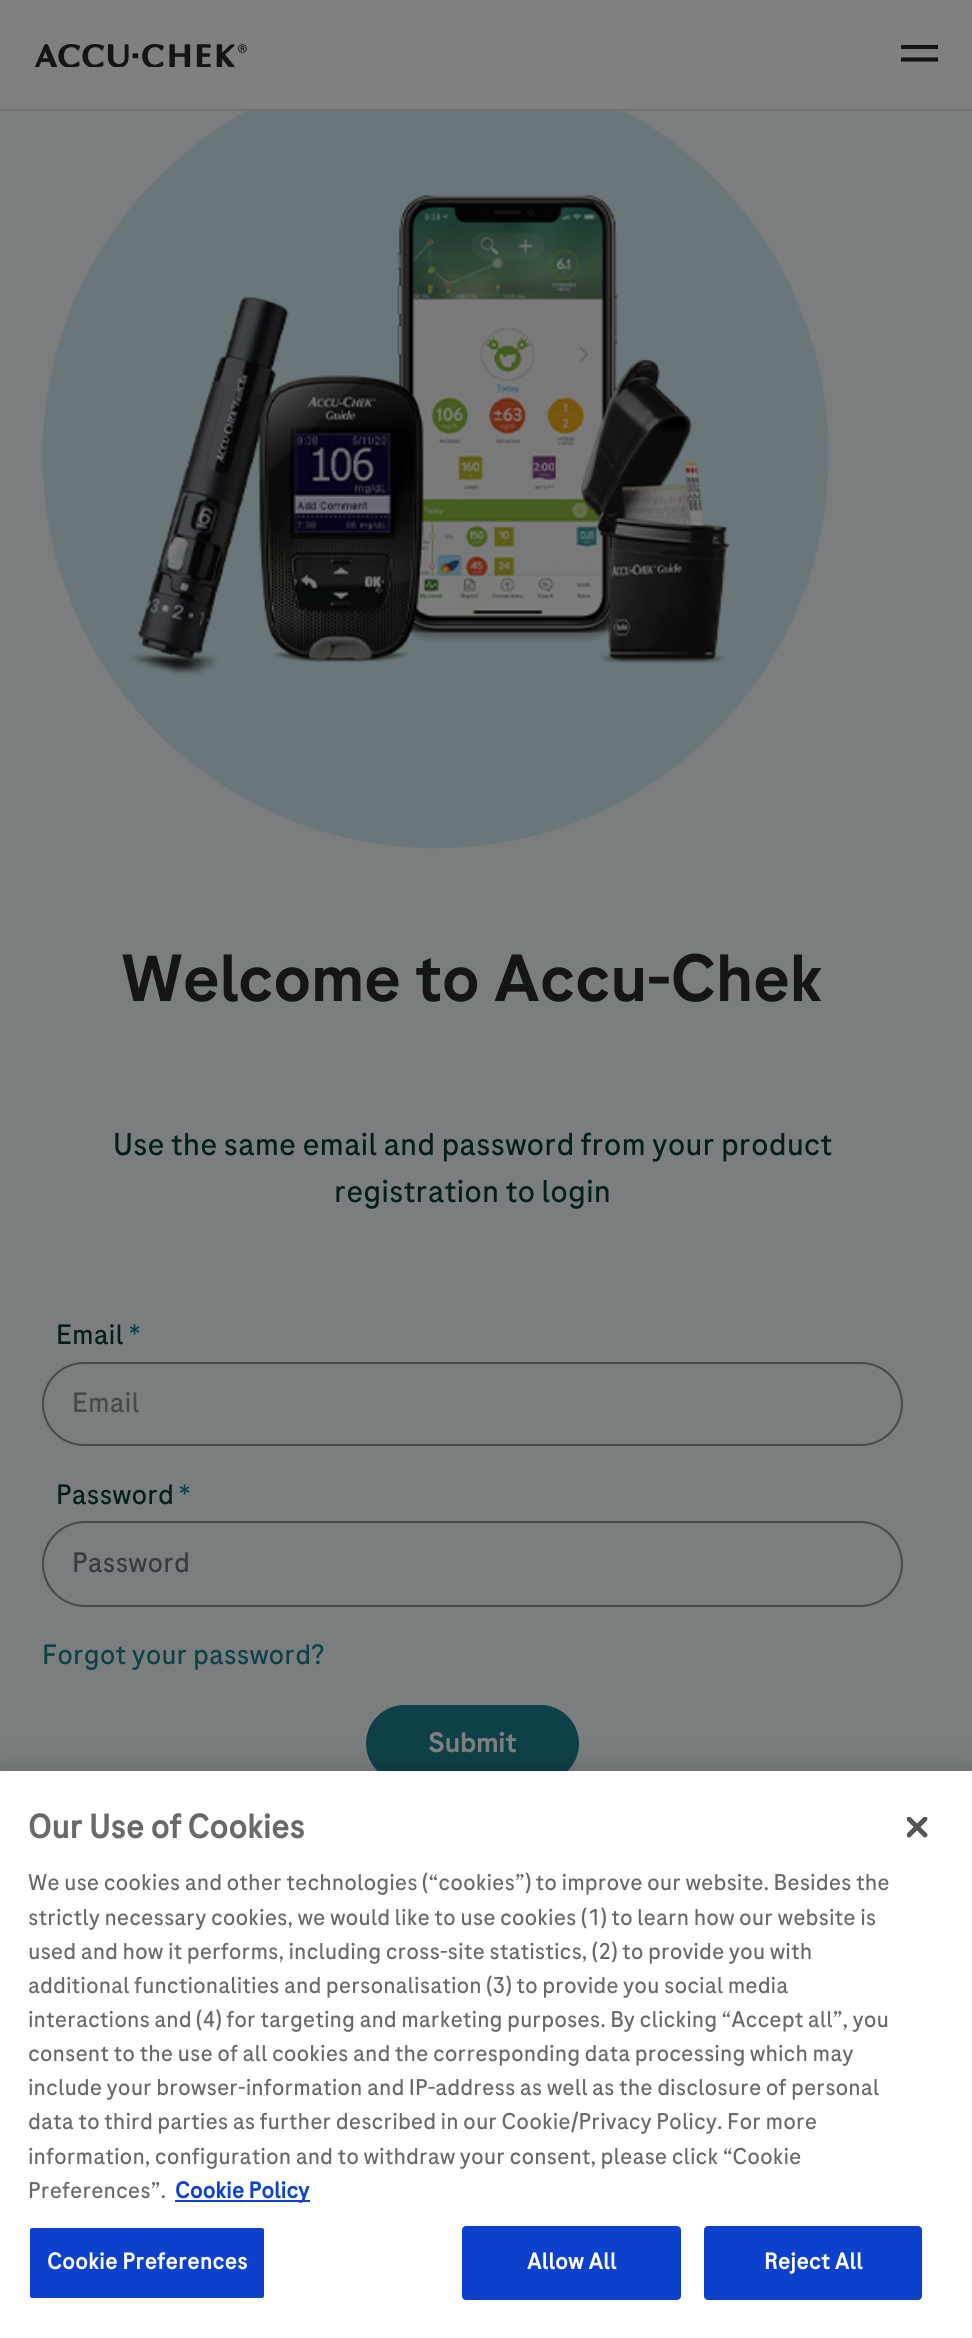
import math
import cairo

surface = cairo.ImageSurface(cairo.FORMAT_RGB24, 972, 2338)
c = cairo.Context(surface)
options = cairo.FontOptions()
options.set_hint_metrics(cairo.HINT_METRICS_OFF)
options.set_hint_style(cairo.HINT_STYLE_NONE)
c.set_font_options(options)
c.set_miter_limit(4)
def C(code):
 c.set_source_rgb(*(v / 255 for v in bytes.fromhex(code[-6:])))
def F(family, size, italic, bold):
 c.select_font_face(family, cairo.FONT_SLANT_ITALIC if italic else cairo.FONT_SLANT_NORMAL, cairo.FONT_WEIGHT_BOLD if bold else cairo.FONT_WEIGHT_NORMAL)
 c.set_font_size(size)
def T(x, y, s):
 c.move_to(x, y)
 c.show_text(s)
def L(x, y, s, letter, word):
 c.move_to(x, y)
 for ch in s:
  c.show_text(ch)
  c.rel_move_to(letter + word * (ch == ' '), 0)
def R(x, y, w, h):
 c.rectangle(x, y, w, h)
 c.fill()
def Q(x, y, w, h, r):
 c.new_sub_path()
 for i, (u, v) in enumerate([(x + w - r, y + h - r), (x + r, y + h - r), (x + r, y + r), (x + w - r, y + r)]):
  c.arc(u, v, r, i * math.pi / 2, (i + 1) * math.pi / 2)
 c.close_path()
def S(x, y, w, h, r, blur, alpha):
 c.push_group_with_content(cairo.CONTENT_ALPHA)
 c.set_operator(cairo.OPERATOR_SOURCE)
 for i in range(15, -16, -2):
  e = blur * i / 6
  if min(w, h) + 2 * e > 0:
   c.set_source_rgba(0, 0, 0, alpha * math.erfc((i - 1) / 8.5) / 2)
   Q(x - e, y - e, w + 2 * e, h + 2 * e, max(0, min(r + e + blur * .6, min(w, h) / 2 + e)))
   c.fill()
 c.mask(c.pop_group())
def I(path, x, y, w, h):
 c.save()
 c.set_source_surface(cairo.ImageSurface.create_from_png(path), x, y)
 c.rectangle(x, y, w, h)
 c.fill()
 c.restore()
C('7a7e7f')
c.paint()
C('808080')
R(0,0,972,109)
C('727272')
R(0,109,972,2)
I('1.png',35,44,212,23)
C('141416')
R(901,45,37,4)
c.new_path()
c.move_to(901,59.5)
c.line_to(938,59.5)
c.set_line_width(4.1)
c.stroke()
I('2.png',42,111,787,738)
F('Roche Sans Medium',66.5,0,0)
C('151515')
T(121,1001,'Welcome to Accu-Chek')
F('Roche Sans',31.5,0,0)
C('061d1f')
T(113,1155,'Use the same email and password from your product')
T(334,1202,'registration to login')
F('Roche Sans',28,0,0)
T(56,1344,'Email')
C('0d4147')
T(129,1344,'*')
Q(43,1363,859,82,41)
C('484848')
c.set_line_width(2)
c.stroke()
T(72,1412,'Email')
C('061d1f')
T(56,1504,'Password')
C('0d4147')
T(179,1504,'*')
Q(43,1522,859,84,42)
C('484848')
c.stroke()
C('363b3f')
T(72,1572,'Password')
C('0d4147')
T(42,1664,'Forgot your password?')
Q(367,1706,211,75,37.5)
c.fill_preserve()
c.stroke()
F('Roche Sans Medium',28,0,0)
C('808080')
T(428,1752,'Submit')
C('000000')
S(0,1771,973,567,0,16,.2)
C('ffffff')
R(0,1771,972,567)
F('Roche Sans',33.5,0,1)
C('696969')
T(28,1838,'Our Use of Cookies')
F('Roche Sans',22.75,0,0)
T(28,1890,'We use cookies and other technologies (“cookies”) to improve our website. Besides the')
T(28,1925,'strictly necessary cookies, we would like to use cookies (1) to learn how our website is')
T(28,1959,'used and how it performs, including cross-site statistics, (2) to provide you with')
T(28,1993,'additional functionalities and personalisation (3) to provide you social media')
T(28,2027,'interactions and (4) for targeting and marketing purposes. By clicking “Accept all”, you')
T(28,2061,'consent to the use of all cookies and the corresponding data processing which may')
T(28,2095,'include your browser-information and IP-address as well as the disclosure of personal')
T(28,2129,'data to third parties as further described in our Cookie/Privacy Policy. For more')
T(28,2164,'information, configuration and to withdraw your consent, please click “Cookie')
T(28,2198,'Preferences”.')
C('0b41cd')
R(175,2200,135,2)
F('Roche Sans',22.75,0,1)
T(175,2198,'Cookie Policy')
Q(29,2227,236,72,3)
c.fill_preserve()
C('ffffff')
c.stroke()
L(47,2269,'Cookie Preferences',.25,0)
C('0b41cd')
Q(463,2227,217,72,3)
c.fill_preserve()
c.stroke()
C('ffffff')
L(527,2269,'Allow All',.25,0)
C('0b41cd')
Q(705,2227,216,72,3)
c.fill_preserve()
c.stroke()
C('ffffff')
L(764,2269,'Reject All',.25,0)
I('3.png',907,1817,21,21)
surface.write_to_png('o.png')
